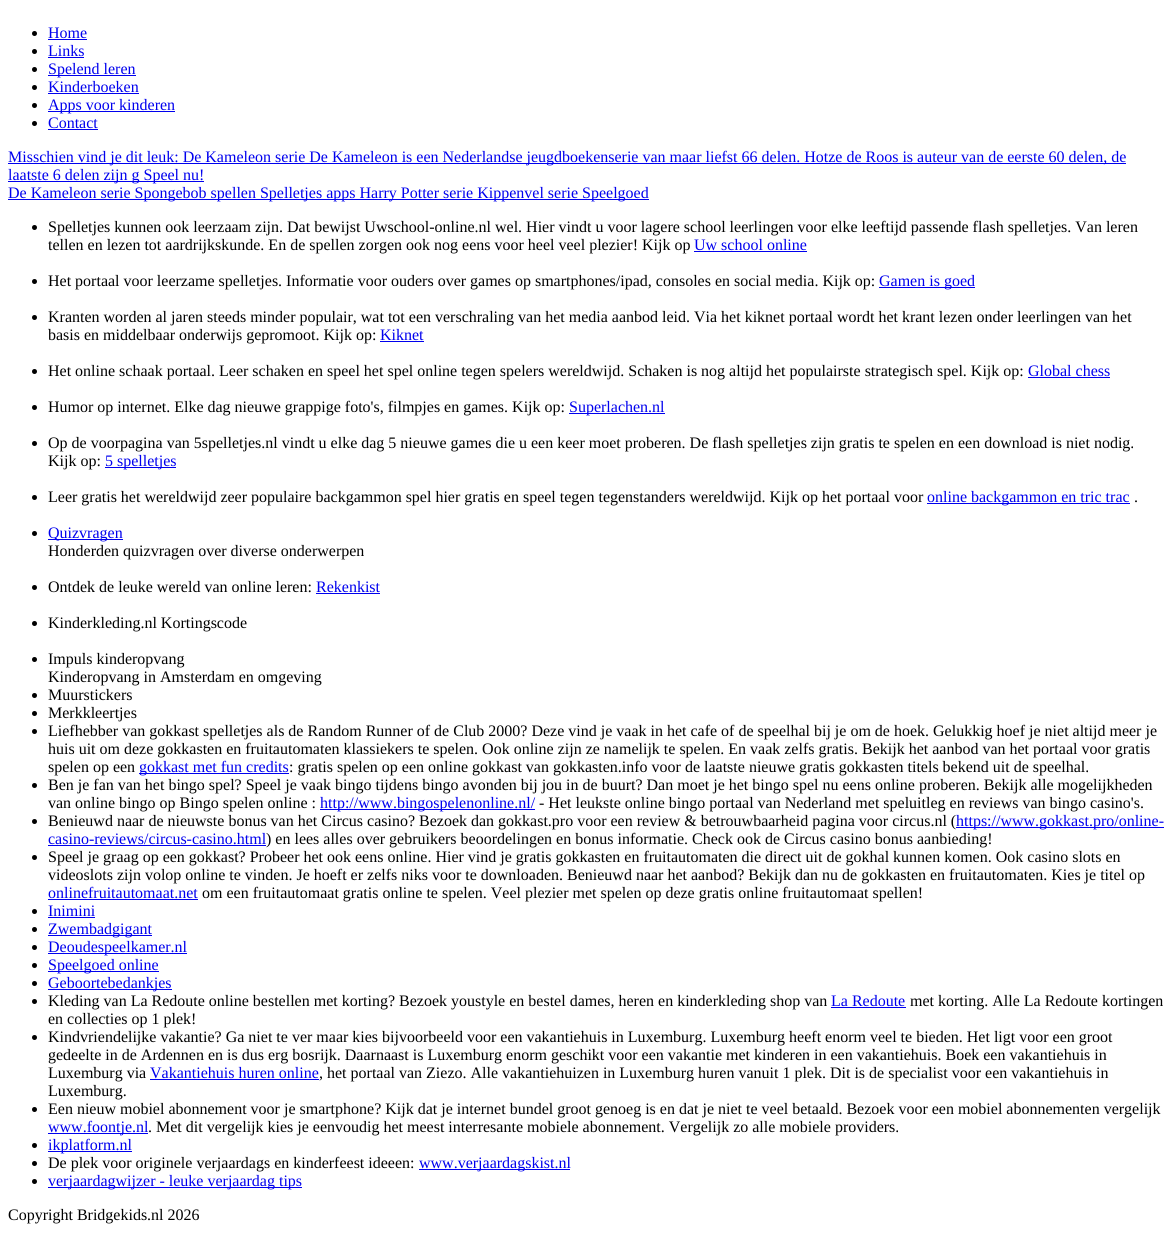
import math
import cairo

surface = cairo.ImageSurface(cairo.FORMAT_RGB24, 1173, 1252)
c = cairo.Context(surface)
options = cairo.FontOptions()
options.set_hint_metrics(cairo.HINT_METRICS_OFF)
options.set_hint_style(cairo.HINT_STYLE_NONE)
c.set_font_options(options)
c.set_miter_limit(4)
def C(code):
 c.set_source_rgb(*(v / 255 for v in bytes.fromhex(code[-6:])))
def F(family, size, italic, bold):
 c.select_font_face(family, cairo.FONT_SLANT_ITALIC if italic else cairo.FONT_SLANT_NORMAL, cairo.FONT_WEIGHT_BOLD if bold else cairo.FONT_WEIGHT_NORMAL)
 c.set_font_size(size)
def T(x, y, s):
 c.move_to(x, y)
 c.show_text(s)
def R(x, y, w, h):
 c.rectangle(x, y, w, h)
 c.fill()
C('ffffff')
c.paint()
C('000000')
c.arc(34.5,33.5,2.5,0,2 * math.pi)
c.fill()
F('Liberation Serif',16,0,0)
C('0000ee')
T(48,38,'Home')
R(48,39,39,1)
C('000000')
c.new_path()
c.arc(34.5,51.5,2.5,0,2 * math.pi)
c.fill()
C('0000ee')
T(48,56,'Links')
R(48,57,36,1)
C('000000')
c.new_path()
c.arc(34.5,69.5,2.5,0,2 * math.pi)
c.fill()
C('0000ee')
R(48,75,88,1)
T(48,74,'Spelend leren')
C('000000')
c.new_path()
c.arc(34.5,87.5,2.5,0,2 * math.pi)
c.fill()
C('0000ee')
T(48,92,'Kinderboeken')
R(48,93,91,1)
C('000000')
c.new_path()
c.arc(34.5,105.5,2.5,0,2 * math.pi)
c.fill()
C('0000ee')
R(48,111,127,1)
T(48,110,'Apps voor kinderen')
C('000000')
c.new_path()
c.arc(34.5,123.5,2.5,0,2 * math.pi)
c.fill()
C('0000ee')
T(48,128,'Contact')
R(48,129,50,1)
R(8,163,1118,1)
T(8,162,'Misschien vind je dit leuk: De Kameleon serie De Kameleon is een Nederlandse jeugdboekenserie van maar liefst 66 delen. Hotze de Roos is auteur van de eerste 60 delen, de')
R(8,181,196,1)
T(8,180,'laatste 6 delen zijn g Speel nu!')
R(8,199,641,1)
T(8,198,'De Kameleon serie Spongebob spellen Spelletjes apps Harry Potter serie Kippenvel serie Speelgoed')
C('000000')
c.new_path()
c.arc(34.5,227.5,2.5,0,2 * math.pi)
c.fill()
T(48,232,'Spelletjes kunnen ook leerzaam zijn. Dat bewijst Uwschool-online.nl wel. Hier vindt u voor lagere school leerlingen voor elke leeftijd passende flash spelletjes. Van leren')
T(48,250,'tellen en lezen tot aardrijkskunde. En de spellen zorgen ook nog eens voor heel veel plezier! Kijk op')
C('0000ee')
T(694,250,'Uw school online')
R(694,251,113,1)
C('000000')
c.new_path()
c.arc(34.5,281.5,2.5,0,2 * math.pi)
c.fill()
T(48,286,'Het portaal voor leerzame spelletjes. Informatie voor ouders over games op smartphones/ipad, consoles en social media. Kijk op:')
C('0000ee')
R(879,287,96,1)
T(879,286,'Gamen is goed')
C('000000')
c.new_path()
c.arc(34.5,317.5,2.5,0,2 * math.pi)
c.fill()
T(48,322,'Kranten worden al jaren steeds minder populair, wat tot een verschraling van het media aanbod leid. Via het kiknet portaal wordt het krant lezen onder leerlingen van het')
T(48,340,'basis en middelbaar onderwijs gepromoot. Kijk op:')
C('0000ee')
T(380,340,'Kiknet')
R(380,341,44,1)
C('000000')
c.new_path()
c.arc(34.5,371.5,2.5,0,2 * math.pi)
c.fill()
T(48,376,'Het online schaak portaal. Leer schaken en speel het spel online tegen spelers wereldwijd. Schaken is nog altijd het populairste strategisch spel. Kijk op:')
C('0000ee')
T(1028,376,'Global chess')
R(1028,377,82,1)
C('000000')
c.new_path()
c.arc(34.5,407.5,2.5,0,2 * math.pi)
c.fill()
T(48,412,'Humor op internet. Elke dag nieuwe grappige foto\'s, filmpjes en games. Kijk op:')
C('0000ee')
R(569,413,96,1)
T(569,412,'Superlachen.nl')
C('000000')
c.new_path()
c.arc(34.5,443.5,2.5,0,2 * math.pi)
c.fill()
T(48,448,'Op de voorpagina van 5spelletjes.nl vindt u elke dag 5 nieuwe games die u een keer moet proberen. De flash spelletjes zijn gratis te spelen en een download is niet nodig.')
T(48,466,'Kijk op:')
C('0000ee')
R(105,467,71,1)
T(105,466,'5 spelletjes')
C('000000')
c.new_path()
c.arc(34.5,497.5,2.5,0,2 * math.pi)
c.fill()
T(48,502,'Leer gratis het wereldwijd zeer populaire backgammon spel hier gratis en speel tegen tegenstanders wereldwijd. Kijk op het portaal voor')
C('0000ee')
R(927,503,203,1)
T(927,502,'online backgammon en tric trac')
C('000000')
T(1134,502,'.')
c.new_path()
c.arc(34.5,533.5,2.5,0,2 * math.pi)
c.fill()
C('0000ee')
R(48,539,75,1)
T(48,538,'Quizvragen')
C('000000')
T(48,556,'Honderden quizvragen over diverse onderwerpen')
c.new_path()
c.arc(34.5,587.5,2.5,0,2 * math.pi)
c.fill()
T(48,592,'Ontdek de leuke wereld van online leren:')
C('0000ee')
T(316,592,'Rekenkist')
R(316,593,64,1)
C('000000')
c.new_path()
c.arc(34.5,623.5,2.5,0,2 * math.pi)
c.fill()
T(48,628,'Kinderkleding.nl Kortingscode')
c.new_path()
c.arc(34.5,659.5,2.5,0,2 * math.pi)
c.fill()
T(48,664,'Impuls kinderopvang')
T(48,682,'Kinderopvang in Amsterdam en omgeving')
c.new_path()
c.arc(34.5,695.5,2.5,0,2 * math.pi)
c.fill()
T(48,700,'Muurstickers')
c.new_path()
c.arc(34.5,713.5,2.5,0,2 * math.pi)
c.fill()
T(48,718,'Merkkleertjes')
c.new_path()
c.arc(34.5,731.5,2.5,0,2 * math.pi)
c.fill()
T(48,736,'Liefhebber van gokkast spelletjes als de Random Runner of de Club 2000? Deze vind je vaak in het cafe of de speelhal bij je om de hoek. Gelukkig hoef je niet altijd meer je')
T(48,754,'huis uit om deze gokkasten en fruitautomaten klassiekers te spelen. Ook online zijn ze namelijk te spelen. En vaak zelfs gratis. Bekijk het aanbod van het portaal voor gratis')
T(48,772,'spelen op een')
C('0000ee')
R(139,773,150,1)
T(139,772,'gokkast met fun credits')
C('000000')
T(289,772,': gratis spelen op een online gokkast van gokkasten.info voor de laatste nieuwe gratis gokkasten titels bekend uit de speelhal.')
c.new_path()
c.arc(34.5,785.5,2.5,0,2 * math.pi)
c.fill()
T(48,790,'Ben je fan van het bingo spel? Speel je vaak bingo tijdens bingo avonden bij jou in de buurt? Dan moet je het bingo spel nu eens online proberen. Bekijk alle mogelijkheden')
T(48,808,'van online bingo op Bingo spelen online :')
C('0000ee')
R(320,809,215,1)
T(320,808,'http://www.bingospelenonline.nl/')
C('000000')
T(539,808,'- Het leukste online bingo portaal van Nederland met speluitleg en reviews van bingo casino\'s.')
c.new_path()
c.arc(34.5,821.5,2.5,0,2 * math.pi)
c.fill()
T(48,826,'Benieuwd naar de nieuwste bonus van het Circus casino? Bezoek dan gokkast.pro voor een review & betrouwbaarheid pagina voor circus.nl (')
C('0000ee')
R(956,827,208,1)
T(956,826,'https://www.gokkast.pro/online-')
T(48,844,'casino-reviews/circus-casino.html')
R(48,845,218,1)
C('000000')
T(266,844,') en lees alles over gebruikers beoordelingen en bonus informatie. Check ook de Circus casino bonus aanbieding!')
c.new_path()
c.arc(34.5,857.5,2.5,0,2 * math.pi)
c.fill()
T(48,862,'Speel je graag op een gokkast? Probeer het ook eens online. Hier vind je gratis gokkasten en fruitautomaten die direct uit de gokhal kunnen komen. Ook casino slots en')
T(48,880,'videoslots zijn volop online te vinden. Je hoeft er zelfs niks voor te downloaden. Benieuwd naar het aanbod? Bekijk dan nu de gokkasten en fruitautomaten. Kies je titel op')
C('0000ee')
T(48,898,'onlinefruitautomaat.net')
R(48,899,150,1)
C('000000')
T(202,898,'om een fruitautomaat gratis online te spelen. Veel plezier met spelen op deze gratis online fruitautomaat spellen!')
c.new_path()
c.arc(34.5,911.5,2.5,0,2 * math.pi)
c.fill()
C('0000ee')
T(48,916,'Inimini')
R(48,917,47,1)
C('000000')
c.new_path()
c.arc(34.5,929.5,2.5,0,2 * math.pi)
c.fill()
C('0000ee')
R(48,935,104,1)
T(48,934,'Zwembadgigant')
C('000000')
c.new_path()
c.arc(34.5,947.5,2.5,0,2 * math.pi)
c.fill()
C('0000ee')
R(48,953,139,1)
T(48,952,'Deoudespeelkamer.nl')
C('000000')
c.new_path()
c.arc(34.5,965.5,2.5,0,2 * math.pi)
c.fill()
C('0000ee')
R(48,971,111,1)
T(48,970,'Speelgoed online')
C('000000')
c.new_path()
c.arc(34.5,983.5,2.5,0,2 * math.pi)
c.fill()
C('0000ee')
R(48,989,124,1)
T(48,988,'Geboortebedankjes')
C('000000')
c.new_path()
c.arc(34.5,1001.5,2.5,0,2 * math.pi)
c.fill()
T(48,1006,'Kleding van La Redoute online bestellen met korting? Bezoek youstyle en bestel dames, heren en kinderkleding shop van')
C('0000ee')
T(831,1006,'La Redoute')
R(831,1007,75,1)
C('000000')
T(910,1006,'met korting. Alle La Redoute kortingen')
T(48,1024,'en collecties op 1 plek!')
c.new_path()
c.arc(34.5,1037.5,2.5,0,2 * math.pi)
c.fill()
T(48,1042,'Kindvriendelijke vakantie? Ga niet te ver maar kies bijvoorbeeld voor een vakantiehuis in Luxemburg. Luxemburg heeft enorm veel te bieden. Het ligt voor een groot')
T(48,1060,'gedeelte in de Ardennen en is dus erg bosrijk. Daarnaast is Luxemburg enorm geschikt voor een vakantie met kinderen in een vakantiehuis. Boek een vakantiehuis in')
T(48,1078,'Luxemburg via')
C('0000ee')
T(150,1078,'Vakantiehuis huren online')
R(150,1079,169,1)
C('000000')
T(319,1078,', het portaal van Ziezo. Alle vakantiehuizen in Luxemburg huren vanuit 1 plek. Dit is de specialist voor een vakantiehuis in')
T(48,1096,'Luxemburg.')
c.new_path()
c.arc(34.5,1109.5,2.5,0,2 * math.pi)
c.fill()
T(48,1114,'Een nieuw mobiel abonnement voor je smartphone? Kijk dat je internet bundel groot genoeg is en dat je niet te veel betaald. Bezoek voor een mobiel abonnementen vergelijk')
C('0000ee')
R(48,1133,100,1)
T(48,1132,'www.foontje.nl')
C('000000')
T(148,1132,'. Met dit vergelijk kies je eenvoudig het meest interresante mobiele abonnement. Vergelijk zo alle mobiele providers.')
c.new_path()
c.arc(34.5,1145.5,2.5,0,2 * math.pi)
c.fill()
C('0000ee')
R(48,1151,84,1)
T(48,1150,'ikplatform.nl')
C('000000')
c.new_path()
c.arc(34.5,1163.5,2.5,0,2 * math.pi)
c.fill()
T(48,1168,'De plek voor originele verjaardags en kinderfeest ideeen:')
C('0000ee')
R(419,1169,151,1)
T(419,1168,'www.verjaardagskist.nl')
C('000000')
c.new_path()
c.arc(34.5,1181.5,2.5,0,2 * math.pi)
c.fill()
C('0000ee')
R(48,1187,254,1)
T(48,1186,'verjaardagwijzer - leuke verjaardag tips')
C('000000')
T(8,1220,'Copyright Bridgekids.nl 2026')
surface.write_to_png('o.png')
